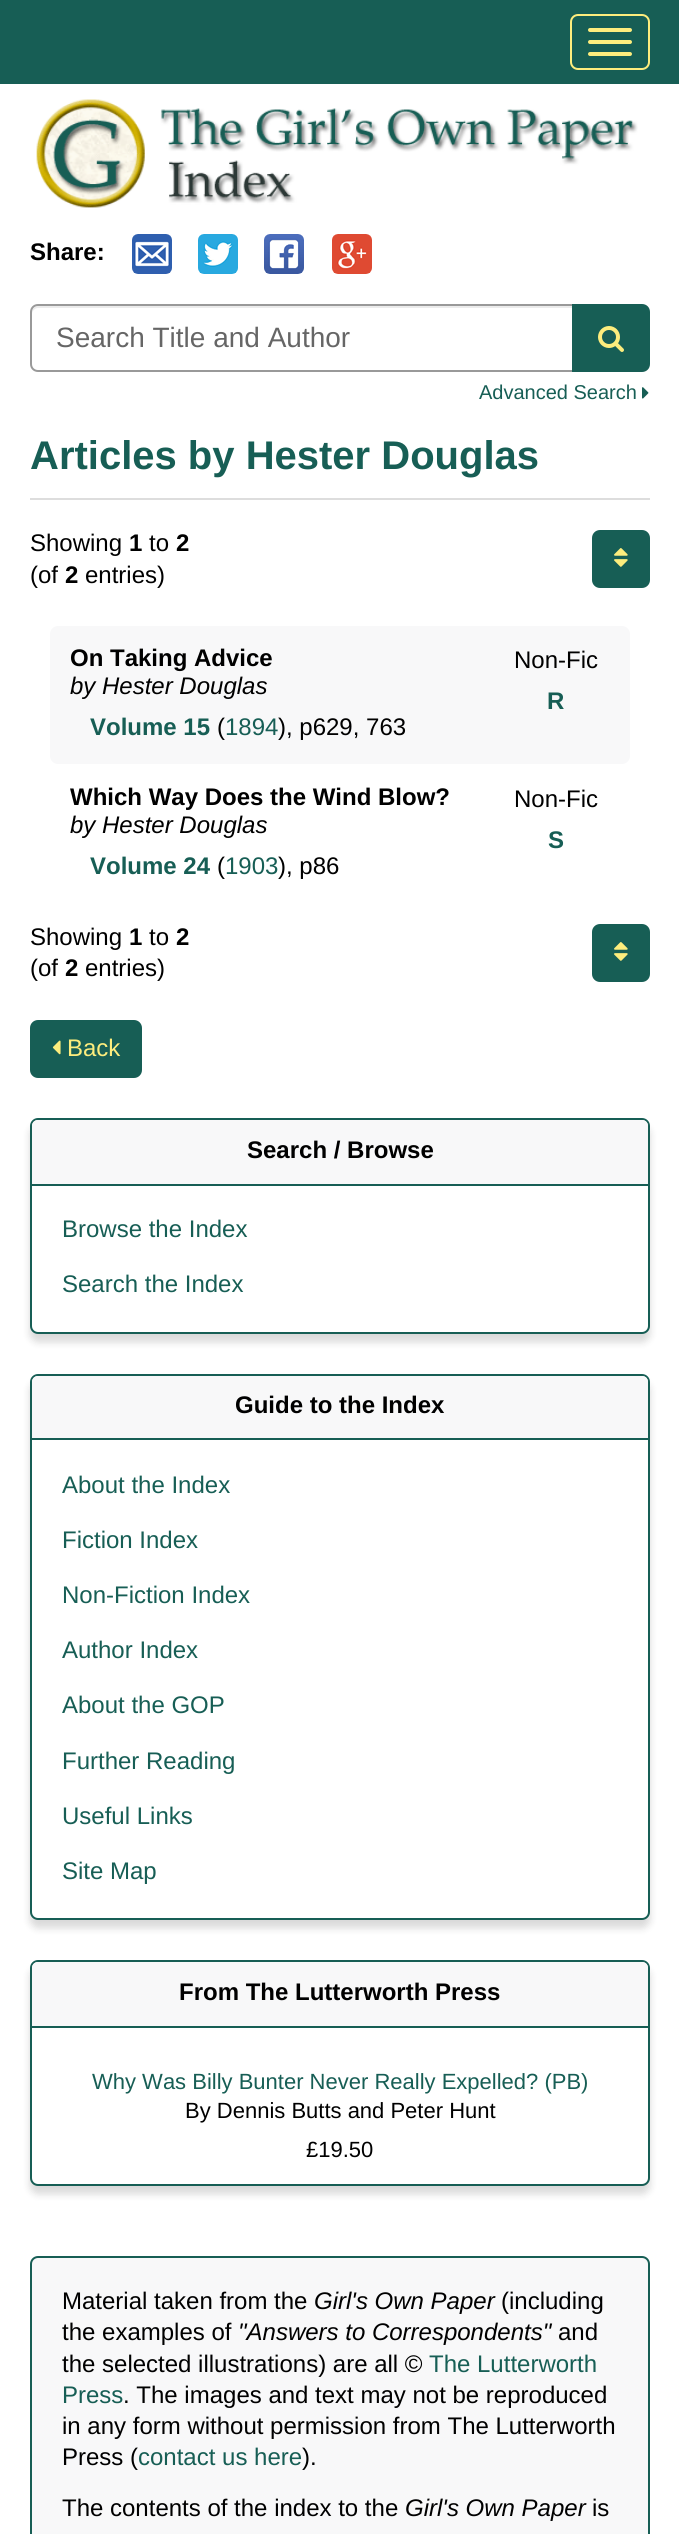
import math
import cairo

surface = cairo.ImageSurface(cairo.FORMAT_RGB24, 679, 2534)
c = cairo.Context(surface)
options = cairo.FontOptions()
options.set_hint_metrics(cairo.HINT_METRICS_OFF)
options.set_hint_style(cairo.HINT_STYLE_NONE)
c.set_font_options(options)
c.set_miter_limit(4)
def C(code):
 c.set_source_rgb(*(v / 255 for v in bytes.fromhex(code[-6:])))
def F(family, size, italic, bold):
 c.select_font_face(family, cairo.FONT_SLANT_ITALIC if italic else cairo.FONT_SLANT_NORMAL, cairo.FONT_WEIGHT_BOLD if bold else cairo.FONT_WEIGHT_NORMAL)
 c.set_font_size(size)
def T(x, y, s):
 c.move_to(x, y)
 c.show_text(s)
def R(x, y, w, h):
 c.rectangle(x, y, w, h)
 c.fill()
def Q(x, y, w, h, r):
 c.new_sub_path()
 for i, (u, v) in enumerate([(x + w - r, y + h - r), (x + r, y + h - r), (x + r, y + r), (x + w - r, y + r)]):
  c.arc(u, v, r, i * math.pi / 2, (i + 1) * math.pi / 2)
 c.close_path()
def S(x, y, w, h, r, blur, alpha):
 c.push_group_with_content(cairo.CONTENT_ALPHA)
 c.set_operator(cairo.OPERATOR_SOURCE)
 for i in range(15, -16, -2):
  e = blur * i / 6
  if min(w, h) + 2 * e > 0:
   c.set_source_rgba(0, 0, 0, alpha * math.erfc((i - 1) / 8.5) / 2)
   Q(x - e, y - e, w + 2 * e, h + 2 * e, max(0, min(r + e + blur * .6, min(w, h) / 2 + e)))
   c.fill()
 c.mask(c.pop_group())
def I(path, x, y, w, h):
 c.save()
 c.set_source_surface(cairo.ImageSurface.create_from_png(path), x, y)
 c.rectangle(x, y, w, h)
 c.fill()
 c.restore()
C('ffffff')
c.paint()
C('175e55')
R(0,0,679,84)
Q(571,15,78,54,7)
C('fded7d')
c.stroke()
Q(588,28,44,4,2)
c.fill()
Q(588,40,44,4,2)
c.fill()
Q(588,52,44,4,2)
c.fill()
I('1.png',36,99,602,109)
F('Liberation Sans',24,0,1)
C('000000')
T(30,260,'Share:')
I('2.png',132,234,40,40)
I('3.png',198,234,40,40)
I('4.png',264,234,40,40)
I('5.png',332,234,40,40)
C('ececec')
c.new_path()
c.move_to(38,308)
c.line_to(572,308)
c.line_to(572,306)
c.line_to(38,306)
c.curve_to(35,306,32,309,32,312)
c.line_to(32,314)
c.curve_to(32,311,35,308,38,308)
c.close_path()
c.fill()
c.new_path()
c.move_to(38,305)
c.line_to(573,305)
c.line_to(573,371)
c.line_to(38,371)
c.curve_to(34,371,31,368,31,364)
c.line_to(31,312)
c.curve_to(31,308,34,305,38,305)
c.close_path()
C('999999')
c.stroke()
F('Liberation Sans',28,0,0)
C('666666')
T(56,347,'Search Title and Author')
C('175e55')
c.new_path()
c.move_to(573,305)
c.line_to(642,305)
c.curve_to(646,305,649,308,649,312)
c.line_to(649,364)
c.curve_to(649,368,646,371,642,371)
c.line_to(573,371)
c.close_path()
c.fill_preserve()
c.stroke()
I('6.png',598,326,26,26)
F('Liberation Sans',20,0,0)
T(479,399,'Advanced Search')
I('7.png',642,387,7,12)
C('dddddd')
R(30,498,620,2)
F('Liberation Sans',40,0,1)
C('175e55')
T(30,469,'Articles by Hester Douglas')
F('Liberation Sans',24,0,0)
C('000000')
T(30,551,'Showing')
F('Liberation Sans',24,0,1)
T(129,551,'1')
F('Liberation Sans',24,0,0)
T(149,551,'to')
F('Liberation Sans',24,0,1)
T(176,551,'2')
F('Liberation Sans',24,0,0)
T(30,583,'(of')
F('Liberation Sans',24,0,1)
T(65,583,'2')
F('Liberation Sans',24,0,0)
T(85,583,'entries)')
C('175e55')
Q(593,531,56,56,7)
c.fill_preserve()
c.stroke()
I('8.png',614,548,14,19)
C('f8f8f9')
Q(50,626,580,138,8)
c.fill()
F('Liberation Sans',24,0,1)
C('000000')
T(70,666,'On Taking Advice')
F('Liberation Sans',24,1,0)
T(70,694,'by Hester Douglas')
F('Liberation Sans',24,0,1)
C('175e55')
T(90,735,'Volume 15')
F('Liberation Sans',24,0,0)
C('000000')
T(217,735,'(')
C('175e55')
T(225,735,'1894')
C('000000')
T(278,735,'), p629, 763')
T(514,668,'Non-Fic')
F('Liberation Sans',24,0,1)
C('175e55')
T(547,709,'R')
C('000000')
T(70,805,'Which Way Does the Wind Blow?')
F('Liberation Sans',24,1,0)
T(70,833,'by Hester Douglas')
F('Liberation Sans',24,0,1)
C('175e55')
T(90,874,'Volume 24')
F('Liberation Sans',24,0,0)
C('000000')
T(217,874,'(')
C('175e55')
T(225,874,'1903')
C('000000')
T(278,874,'), p86')
T(514,807,'Non-Fic')
F('Liberation Sans',24,0,1)
C('175e55')
T(548,848,'S')
F('Liberation Sans',24,0,0)
C('000000')
T(30,945,'Showing')
F('Liberation Sans',24,0,1)
T(129,945,'1')
F('Liberation Sans',24,0,0)
T(149,945,'to')
F('Liberation Sans',24,0,1)
T(176,945,'2')
F('Liberation Sans',24,0,0)
T(30,976,'(of')
F('Liberation Sans',24,0,1)
T(65,976,'2')
F('Liberation Sans',24,0,0)
T(85,976,'entries)')
C('175e55')
Q(593,925,56,56,7)
c.fill_preserve()
c.stroke()
I('8.png',614,942,14,19)
Q(31,1021,110,56,7)
c.fill_preserve()
c.stroke()
I('9.png',52,1040,9,15)
C('fded7d')
T(67,1056,'Back')
C('000000')
S(30,1126,620,216,8,4,.15)
C('ffffff')
Q(31,1119,618,214,7)
c.fill_preserve()
C('175e55')
c.stroke()
C('f8f8f9')
c.new_path()
c.move_to(38,1120)
c.line_to(642,1120)
c.curve_to(645.5,1120,648,1122.5,648,1126)
c.line_to(648,1186)
c.line_to(32,1186)
c.line_to(32,1126)
c.curve_to(32,1122.5,34.5,1120,38,1120)
c.close_path()
c.fill()
C('175e55')
R(32,1184,616,2)
F('Liberation Sans',24,0,1)
C('000000')
T(247,1158,'Search / Browse')
F('Liberation Sans',24,0,0)
C('175e55')
T(62,1237,'Browse the Index')
T(62,1292,'Search the Index')
C('000000')
S(30,1382,620,546,8,4,.15)
C('ffffff')
Q(31,1375,618,544,7)
c.fill_preserve()
C('175e55')
c.stroke()
C('f8f8f9')
c.new_path()
c.move_to(38,1376)
c.line_to(642,1376)
c.curve_to(645.5,1376,648,1378.5,648,1382)
c.line_to(648,1440)
c.line_to(32,1440)
c.line_to(32,1382)
c.curve_to(32,1378.5,34.5,1376,38,1376)
c.close_path()
c.fill()
C('175e55')
R(32,1438,616,2)
F('Liberation Sans',24,0,1)
C('000000')
T(235,1413,'Guide to the Index')
F('Liberation Sans',24,0,0)
C('175e55')
T(62,1493,'About the Index')
T(62,1548,'Fiction Index')
T(62,1603,'Non-Fiction Index')
T(62,1658,'Author Index')
T(62,1713,'About the GOP')
T(62,1769,'Further Reading')
T(62,1824,'Useful Links')
T(62,1879,'Site Map')
C('000000')
S(30,1968,620,226,8,4,.15)
C('ffffff')
Q(31,1961,618,224,7)
c.fill_preserve()
C('175e55')
c.stroke()
C('f8f8f9')
c.new_path()
c.move_to(38,1962)
c.line_to(642,1962)
c.curve_to(645.5,1962,648,1964.5,648,1968)
c.line_to(648,2028)
c.line_to(32,2028)
c.line_to(32,1968)
c.curve_to(32,1964.5,34.5,1962,38,1962)
c.close_path()
c.fill()
C('175e55')
R(32,2026,616,2)
F('Liberation Sans',24,0,1)
C('000000')
T(179,2000,'From The Lutterworth Press')
F('Liberation Sans',22,0,0)
C('175e55')
T(92,2089,'Why Was Billy Bunter Never Really Expelled? (PB)')
C('000000')
T(185,2118,'By Dennis Butts and Peter Hunt')
T(306,2157,'£19.50')
C('f8f8f9')
Q(31,2257,618,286,7)
c.fill_preserve()
C('175e55')
c.stroke()
F('Liberation Sans',24,0,0)
C('000000')
T(62,2309,'Material taken from the')
F('Liberation Sans',24,1,0)
T(314,2309,'Girl\'s Own Paper')
F('Liberation Sans',24,0,0)
T(501,2309,'(including')
T(62,2340,'the examples of')
F('Liberation Sans',24,1,0)
T(238,2340,'"Answers to Correspondents"')
F('Liberation Sans',24,0,0)
T(558,2340,'and')
T(62,2372,'the selected illustrations) are all ©')
C('175e55')
T(429,2372,'The Lutterworth')
T(62,2403,'Press')
C('000000')
T(123,2403,'. The images and text may not be reproduced')
T(62,2434,'in any form without permission from The Lutterworth')
T(62,2465,'Press (')
C('175e55')
T(138,2465,'contact us here')
C('000000')
T(302,2465,').')
T(62,2516,'The contents of the index to the')
F('Liberation Sans',24,1,0)
T(405,2516,'Girl\'s Own Paper')
F('Liberation Sans',24,0,0)
T(592,2516,'is')
surface.write_to_png('o.png')
